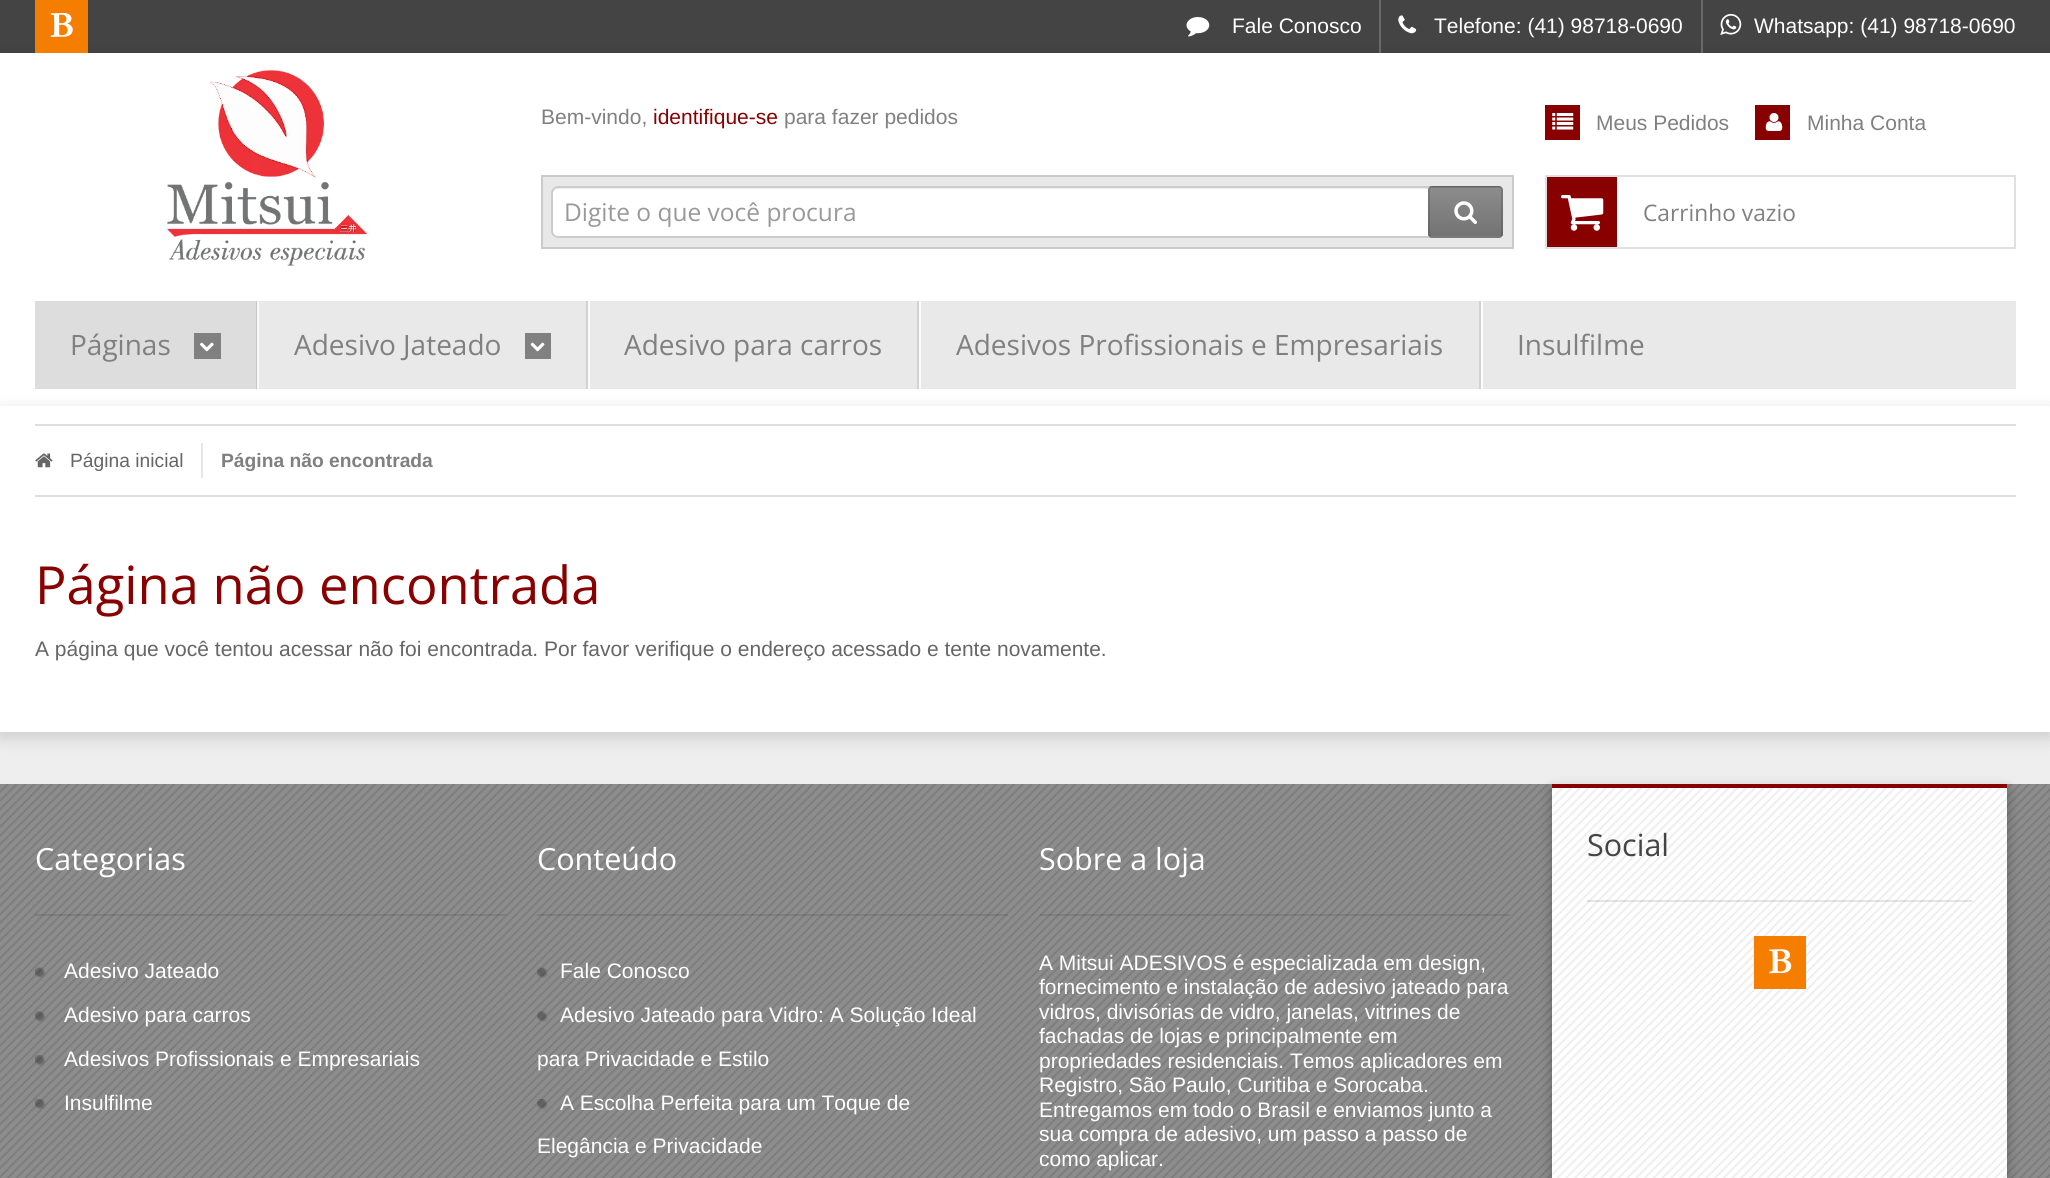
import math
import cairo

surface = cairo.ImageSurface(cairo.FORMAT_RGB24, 2050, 1178)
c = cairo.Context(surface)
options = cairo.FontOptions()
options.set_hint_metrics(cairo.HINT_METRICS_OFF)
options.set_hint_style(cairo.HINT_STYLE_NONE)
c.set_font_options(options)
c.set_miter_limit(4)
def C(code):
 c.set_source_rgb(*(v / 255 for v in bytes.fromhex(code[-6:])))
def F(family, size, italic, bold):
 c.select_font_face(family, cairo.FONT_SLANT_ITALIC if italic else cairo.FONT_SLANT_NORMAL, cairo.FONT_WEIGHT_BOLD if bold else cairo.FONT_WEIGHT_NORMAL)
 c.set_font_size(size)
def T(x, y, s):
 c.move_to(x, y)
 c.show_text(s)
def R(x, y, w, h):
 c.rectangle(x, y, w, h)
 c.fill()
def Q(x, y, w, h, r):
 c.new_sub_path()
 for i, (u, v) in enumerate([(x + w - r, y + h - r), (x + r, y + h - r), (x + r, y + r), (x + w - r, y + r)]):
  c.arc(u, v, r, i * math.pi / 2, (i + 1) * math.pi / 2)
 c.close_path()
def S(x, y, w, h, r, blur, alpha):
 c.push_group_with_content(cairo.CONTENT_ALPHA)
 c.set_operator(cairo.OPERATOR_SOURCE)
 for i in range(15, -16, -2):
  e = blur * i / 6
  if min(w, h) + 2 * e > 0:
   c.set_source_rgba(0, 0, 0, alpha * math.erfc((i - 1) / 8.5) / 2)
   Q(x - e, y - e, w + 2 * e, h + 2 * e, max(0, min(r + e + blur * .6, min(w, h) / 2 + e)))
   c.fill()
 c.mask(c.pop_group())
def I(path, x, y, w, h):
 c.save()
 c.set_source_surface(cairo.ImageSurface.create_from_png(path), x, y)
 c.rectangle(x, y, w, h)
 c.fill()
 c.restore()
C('eeeeee')
c.paint()
C('444444')
R(0,0,2050,53)
C('000000')
S(0,58,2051,353,0,9,.15)
C('f57d00')
R(35,0,53,53)
I('1.png',50,13,23,24)
I('2.png',1186,17,24,20)
F('Liberation Sans',21,0,0)
C('ffffff')
T(1232,33,'Fale Conosco')
C('696969')
R(1379,0,2,53)
I('3.png',1398,15,19,19)
C('ffffff')
T(1434,33,'Telefone: (41) 98718-0690')
C('696969')
R(1701,0,2,53)
I('4.png',1720,13,22,22)
C('ffffff')
T(1754,33,'Whatsapp: (41) 98718-0690')
R(0,53,2050,353)
I('5.png',167,70,201,196)
C('808080')
T(541,124,'Bem-vindo,')
C('880000')
T(653,124,'identifique-se')
C('808080')
T(784,124,'para fazer pedidos')
C('880000')
R(1545,105,35,35)
I('6.png',1552,113,22,17)
C('808080')
T(1596,130,'Meus Pedidos')
C('880000')
R(1755,105,35,35)
I('7.png',1765,113,18,18)
C('808080')
T(1807,130,'Minha Conta')
C('e8e8e8')
c.rectangle(542,176,971,72)
c.fill_preserve()
C('cacaca')
c.stroke()
C('ffffff')
Q(551,186,919,52,7)
c.fill()
C('ececec')
c.new_path()
c.move_to(558,189)
c.line_to(1463,189)
c.curve_to(1466,189,1468,191,1468,194)
c.line_to(1468,192)
c.curve_to(1468,189,1466,187,1463,187)
c.line_to(558,187)
c.curve_to(555,187,553,189,553,192)
c.line_to(553,194)
c.curve_to(553,191,555,189,558,189)
c.close_path()
c.fill()
Q(552,187,917,50,6)
C('cccccc')
c.stroke()
F('Open Sans',24.5,0,0)
C('999999')
T(564,221,'Digite o que você procura')
C('808080')
Q(1428,186,75,52,4)
c.fill()
c.save()
Q(1428,186,75,52,4)
c.clip()
gradient = cairo.LinearGradient(1466,138,1466,187)
gradient.add_color_stop_rgba(0,1,1,1,.1)
gradient.add_color_stop_rgba(1,0,0,0,.1)
c.set_source(gradient)
R(1428,186,75,1)
c.restore()
gradient = cairo.LinearGradient(1466,187,1466,236)
gradient.add_color_stop_rgba(0,1,1,1,.1)
gradient.add_color_stop_rgba(1,0,0,0,.1)
c.set_source(gradient)
R(1428,187,75,49)
c.save()
Q(1428,186,75,52,4)
c.clip()
gradient = cairo.LinearGradient(1466,236,1466,285)
gradient.add_color_stop_rgba(0,1,1,1,.1)
gradient.add_color_stop_rgba(1,0,0,0,.1)
c.set_source(gradient)
R(1428,236,75,2)
c.restore()
Q(1429,187,73,50,3)
c.set_source_rgba(0,0,0,0.13)
c.stroke()
I('8.png',1454,201,23,23)
c.rectangle(1546,176,469,72)
C('e0e0e0')
c.stroke()
C('880000')
R(1547,177,70,70)
I('9.png',1561,195,43,36)
F('Open Sans',22.75,0,0)
C('808080')
T(1643,221,'Carrinho vazio')
C('e9e9e9')
R(259,301,1757,88)
C('fbfbfb')
R(258,301,1,88)
C('f6f6f6')
R(257,301,1,88)
C('000000')
S(0,411,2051,326,0,9,.15)
C('dddddd')
R(35,301,221,88)
C('c7c7c7')
R(256,301,1,88)
F('Open Sans',28,0,0)
C('808080')
T(70,355,'Páginas')
R(194,333,27,26)
I('10.png',200,342,14,10)
C('d2d2d2')
R(586,301,2,88)
C('808080')
T(294,355,'Adesivo Jateado')
R(525,333,26,26)
I('11.png',530,342,15,10)
C('d2d2d2')
R(917,301,2,88)
C('fbfbfb')
R(588,301,2,88)
C('808080')
T(624,355,'Adesivo para carros')
C('d2d2d2')
R(1479,301,2,88)
C('fbfbfb')
R(919,301,2,88)
C('808080')
T(956,355,'Adesivos Profissionais e Empresariais')
C('fbfbfb')
R(1481,301,2,88)
C('808080')
T(1517,355,'Insulfilme')
C('ffffff')
R(0,406,2050,326)
C('dedede')
R(35,424,1981,2)
R(35,495,1981,2)
I('12.png',35,453,18,15)
F('Liberation Sans',19.25,0,0)
C('666666')
T(70,467,'Página inicial')
C('e6e6e6')
R(201,443,2,35)
F('Liberation Sans',19.25,0,1)
C('808080')
T(221,467,'Página não encontrada')
F('Open Sans',52.5,0,0)
C('880000')
T(35,604,'Página não encontrada')
F('Liberation Sans',21,0,0)
C('666666')
T(35,656,'A página que você tentou acessar não foi encontrada. Por favor verifique o endereço acessado e tente novamente.')
C('808080')
R(0,784,2050,394)
I('13.png',0,784,2050,394)
c.set_source_rgba(0,0,0,0.1)
R(35,914,471,2)
F('Open Sans',30.5,0,0)
C('ffffff')
T(35,870,'Categorias')
I('14.png',35,967,11,11)
F('Liberation Sans',21,0,0)
T(64,978,'Adesivo Jateado')
I('15.png',35,1011,10,11)
T(64,1022,'Adesivo para carros')
I('16.png',35,1055,10,11)
T(64,1066,'Adesivos Profissionais e Empresariais')
I('17.png',35,1099,11,10)
T(64,1110,'Insulfilme')
c.set_source_rgba(0,0,0,0.1)
R(537,914,471,2)
F('Open Sans',30.5,0,0)
C('ffffff')
T(537,870,'Conteúdo')
I('18.png',537,967,11,11)
F('Liberation Sans',21,0,0)
T(560,978,'Fale Conosco')
I('19.png',537,1011,11,11)
T(560,1022,'Adesivo Jateado para Vidro: A Solução Ideal')
T(537,1066,'para Privacidade e Estilo')
I('20.png',537,1099,11,11)
T(560,1110,'A Escolha Perfeita para um Toque de')
T(537,1153,'Elegância e Privacidade')
c.set_source_rgba(0,0,0,0.1)
R(1040,914,470,2)
F('Open Sans',30.5,0,0)
C('ffffff')
T(1039,870,'Sobre a loja')
F('Liberation Sans',21,0,0)
T(1039,970,'A Mitsui ADESIVOS é especializada em design,')
T(1039,994,'fornecimento e instalação de adesivo jateado para')
T(1039,1019,'vidros, divisórias de vidro, janelas, vitrines de')
T(1039,1043,'fachadas de lojas e principalmente em')
T(1039,1068,'propriedades residenciais. Temos aplicadores em')
T(1039,1092,'Registro, São Paulo, Curitiba e Sorocaba.')
T(1039,1117,'Entregamos em todo o Brasil e enviamos junto a')
T(1039,1141,'sua compra de adesivo, um passo a passo de')
T(1039,1166,'como aplicar.')
C('000000')
S(1552,789,455,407,0,6,.3)
C('ffffff')
R(1552,788,455,390)
I('21.png',1552,788,455,390)
C('880000')
R(1552,784,455,4)
c.set_source_rgba(0,0,0,0.1)
R(1587,900,385,2)
F('Open Sans',30.5,0,0)
C('444444')
T(1587,856,'Social')
C('f57d00')
R(1754,936,52,53)
I('22.png',1769,949,23,25)
surface.write_to_png('o.png')
